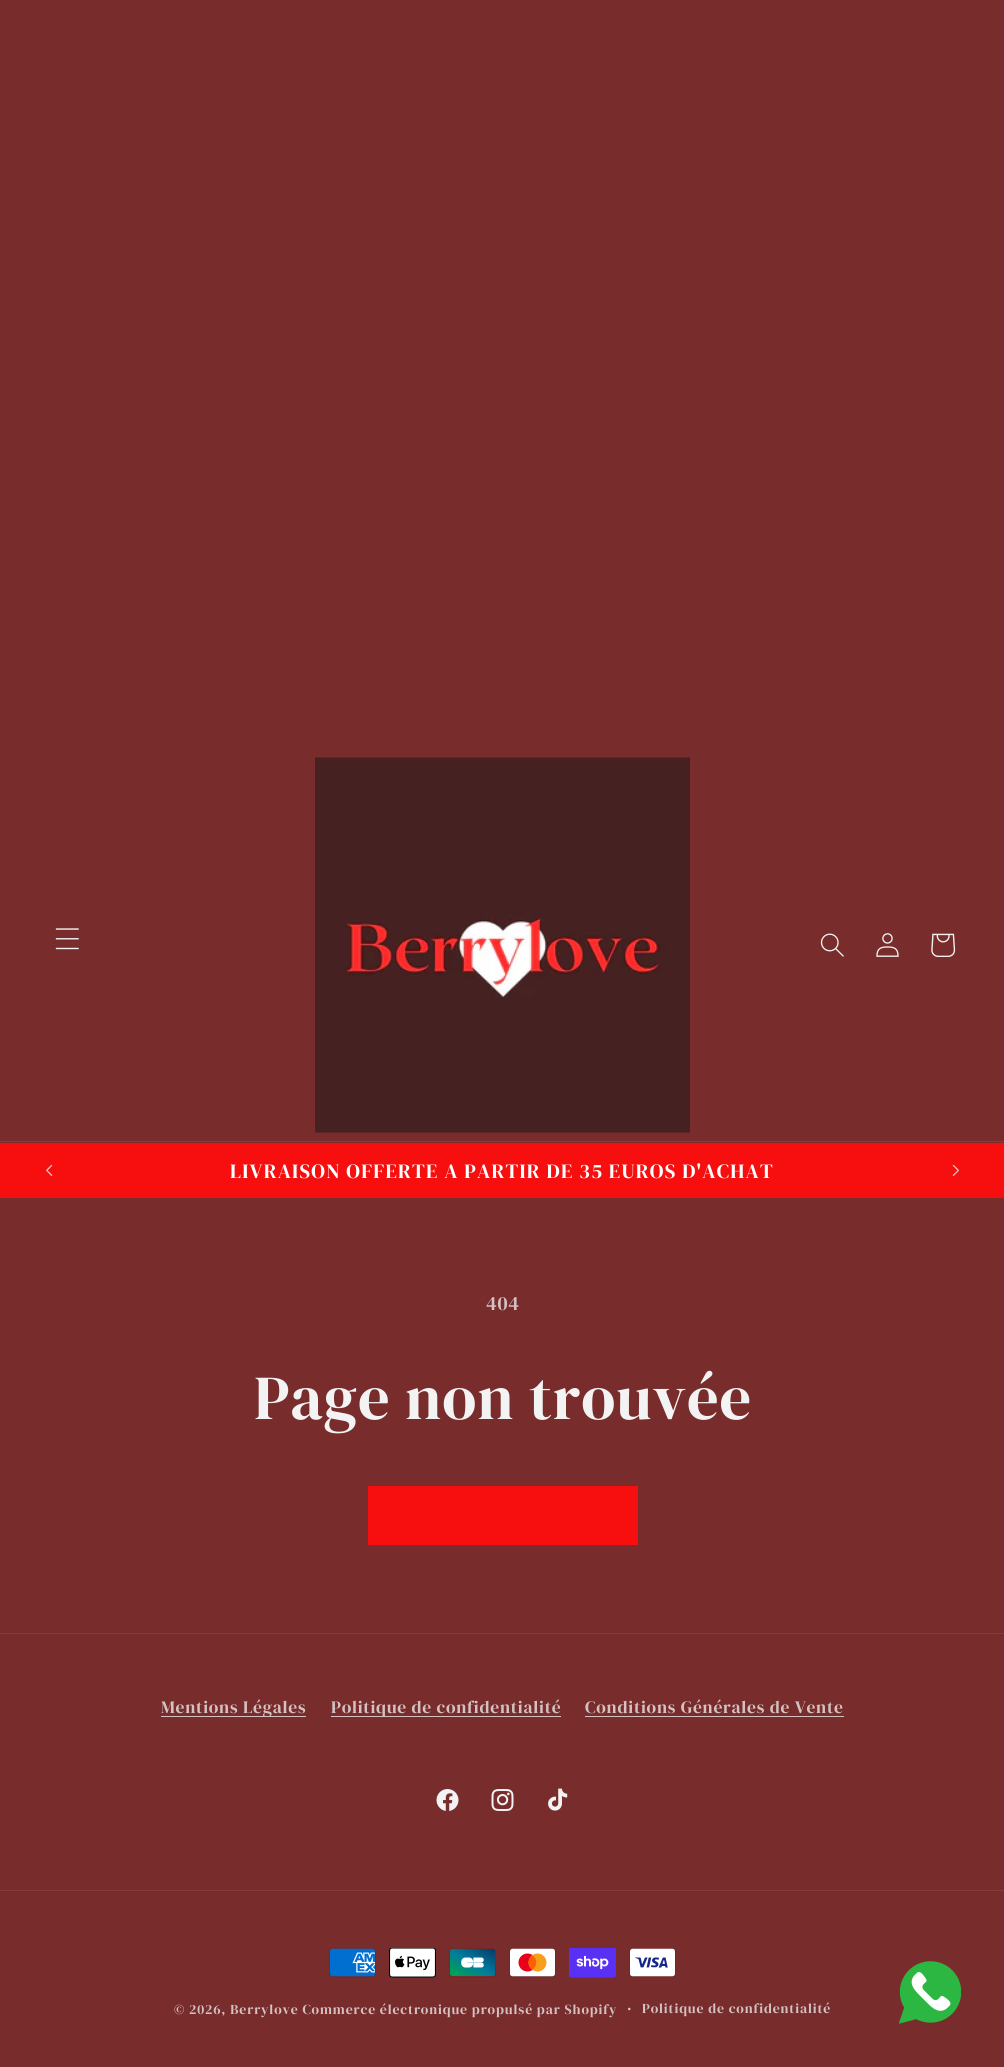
import math
import cairo

surface = cairo.ImageSurface(cairo.FORMAT_RGB24, 1004, 2067)
c = cairo.Context(surface)
options = cairo.FontOptions()
options.set_hint_metrics(cairo.HINT_METRICS_OFF)
options.set_hint_style(cairo.HINT_STYLE_NONE)
c.set_font_options(options)
c.set_miter_limit(4)
def C(code):
 c.set_source_rgb(*(v / 255 for v in bytes.fromhex(code[-6:])))
def F(family, size, italic, bold):
 c.select_font_face(family, cairo.FONT_SLANT_ITALIC if italic else cairo.FONT_SLANT_NORMAL, cairo.FONT_WEIGHT_BOLD if bold else cairo.FONT_WEIGHT_NORMAL)
 c.set_font_size(size)
def L(x, y, s, letter, word):
 c.move_to(x, y)
 for ch in s:
  c.show_text(ch)
  c.rel_move_to(letter + word * (ch == ' '), 0)
def R(x, y, w, h):
 c.rectangle(x, y, w, h)
 c.fill()
def I(path, x, y, w, h):
 c.save()
 c.set_source_surface(cairo.ImageSurface.create_from_png(path), x, y)
 c.rectangle(x, y, w, h)
 c.fill()
 c.restore()
C('782c2c')
c.paint()
C('823c3c')
R(0,1141,1004,1)
I('1.png',55,928,24,22)
I('2.png',315,757,375,376)
I('3.png',820,933,24,24)
I('4.png',876,933,23,24)
I('5.png',931,933,25,24)
C('f70f0f')
R(0,1143,1004,55)
I('6.png',46,1164,7,12)
F('DM Serif Display',20.3,0,0)
C('ffffff')
L(230,1178,'LIVRAISON OFFERTE A PARTIR DE 35 EUROS D\'ACHAT',1.25,0)
I('7.png',952,1164,7,12)
F('DM Serif Display',20,0,0)
C('d4c1c1')
L(486,1310,'404',.75,0)
F('DM Serif Display',62.5,0,0)
C('f3f3f3')
L(254,1419,'Page non trouvée',1,0)
C('f70f0f')
R(368,1486,270,59)
C('823c3c')
R(0,1633,1004,1)
C('d4c1c1')
R(161,1716,145,1)
F('DM Serif Display',17.5,0,0)
L(161,1713,'Mentions Légales',.75,0)
R(331,1716,230,1)
L(331,1713,'Politique de confidentialité',.75,0)
L(585,1713,'Conditions Générales de Vente',.75,0)
R(585,1716,259,1)
I('8.png',436,1789,23,22)
I('9.png',491,1789,23,22)
I('10.png',548,1788,20,23)
C('823c3c')
R(0,1890,1004,1)
I('11.png',329,1948,47,30)
I('12.png',389,1948,47,30)
I('13.png',449,1948,47,30)
I('14.png',509,1948,47,30)
I('15.png',569,1948,47,30)
I('16.png',629,1948,47,30)
F('DM Serif Display',13.75,0,0)
C('d4c1c1')
L(174,2014,'© 2026, Berrylove Commerce électronique propulsé par Shopify',.88,0)
F('DM Serif Display',15,0,0)
L(627,2014,'·',.88,0)
F('DM Serif Display',13.75,0,0)
L(642,2013,'Politique de confidentialité',.88,0)
I('17.png',899,1961,62,63)
surface.write_to_png('o.png')
